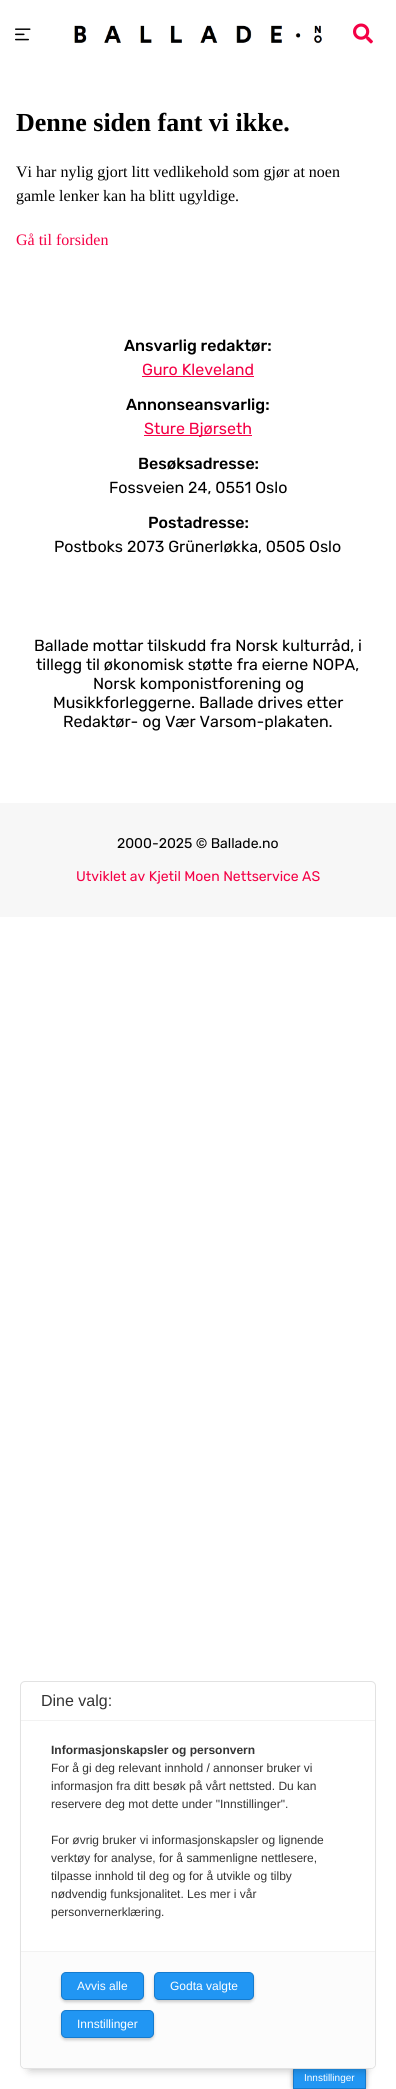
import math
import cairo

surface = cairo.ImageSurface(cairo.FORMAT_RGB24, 396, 2089)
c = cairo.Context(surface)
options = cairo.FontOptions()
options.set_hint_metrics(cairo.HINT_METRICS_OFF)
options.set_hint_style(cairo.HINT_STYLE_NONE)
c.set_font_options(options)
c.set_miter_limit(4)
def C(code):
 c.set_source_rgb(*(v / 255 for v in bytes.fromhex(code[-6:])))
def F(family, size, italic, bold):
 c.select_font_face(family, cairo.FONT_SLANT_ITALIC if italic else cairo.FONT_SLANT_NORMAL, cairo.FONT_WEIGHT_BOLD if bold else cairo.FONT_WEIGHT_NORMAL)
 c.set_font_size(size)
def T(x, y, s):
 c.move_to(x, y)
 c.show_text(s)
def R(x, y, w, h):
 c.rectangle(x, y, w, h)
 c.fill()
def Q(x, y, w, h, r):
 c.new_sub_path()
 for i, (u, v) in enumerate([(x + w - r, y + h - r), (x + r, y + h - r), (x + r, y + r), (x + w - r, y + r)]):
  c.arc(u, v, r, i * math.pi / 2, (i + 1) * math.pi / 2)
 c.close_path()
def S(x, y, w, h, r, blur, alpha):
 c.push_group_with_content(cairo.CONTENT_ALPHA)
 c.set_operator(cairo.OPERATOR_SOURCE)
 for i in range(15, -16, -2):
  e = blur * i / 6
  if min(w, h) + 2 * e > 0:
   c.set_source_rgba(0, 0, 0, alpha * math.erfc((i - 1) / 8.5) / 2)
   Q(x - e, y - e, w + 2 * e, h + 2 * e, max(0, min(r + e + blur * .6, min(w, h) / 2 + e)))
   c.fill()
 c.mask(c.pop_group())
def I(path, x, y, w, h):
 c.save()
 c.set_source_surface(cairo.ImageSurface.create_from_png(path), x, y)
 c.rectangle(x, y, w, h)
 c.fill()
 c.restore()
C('ffffff')
c.paint()
I('1.png',15,28,16,13)
I('2.png',74,25,248,19)
I('3.png',353,23,20,21)
F('Liberation Serif',26,0,1)
C('000000')
T(16,131,'Denne siden fant vi ikke.')
F('Liberation Serif',16,0,0)
T(16,177,'Vi har nylig gjort litt vedlikehold som gjør at noen')
T(16,201,'gamle lenker kan ha blitt ugyldige.')
C('f40045')
T(16,245,'Gå til forsiden')
F('Rubik Medium',16,0,0)
C('000000')
T(124,351,'Ansvarlig redaktør:')
F('Rubik',16,0,0)
C('f40045')
T(142,375,'Guro Kleveland')
R(142,376,112,1)
F('Rubik Medium',16,0,0)
C('000000')
T(126,410,'Annonseansvarlig:')
C('f40045')
R(144,435,108,1)
F('Rubik',16,0,0)
T(144,434,'Sture Bjørseth')
F('Rubik Medium',16,0,0)
C('000000')
T(138,469,'Besøksadresse:')
F('Rubik',16,0,0)
T(109,493,'Fossveien 24, 0551 Oslo')
F('Rubik Medium',16,0,0)
T(148,528,'Postadresse:')
F('Rubik',16,0,0)
T(54,552,'Postboks 2073 Grünerløkka, 0505 Oslo')
T(34,651,'Ballade mottar tilskudd fra Norsk kulturråd, i')
T(36,670,'tillegg til økonomisk støtte fra eierne NOPA,')
T(93,689,'Norsk komponistforening og')
T(53,708,'Musikkforleggerne. Ballade drives etter')
T(63,727,'Redaktør- og Vær Varsom-plakaten.')
C('f7f7f7')
R(0,803,396,114)
F('Rubik',14,0,0)
C('000000')
T(117,848,'2000-2025 © Ballade.no')
C('f40045')
T(76,881,'Utviklet av Kjetil Moen Nettservice AS')
C('000000')
S(293,2068,73,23,5,2.5,.4)
C('2196f3')
c.new_path()
c.move_to(298,2066.5)
c.line_to(361,2066.5)
c.curve_to(363.5,2066.5,365.5,2068.5,365.5,2071)
c.line_to(365.5,2088.5)
c.line_to(293.5,2088.5)
c.line_to(293.5,2071)
c.curve_to(293.5,2068.5,295.5,2066.5,298,2066.5)
c.close_path()
c.fill_preserve()
C('157bce')
c.set_line_width(1)
c.stroke()
C('000000')
S(30,1701,336,368,0,5,.3)
C('ffffff')
Q(20.5,1681.5,355,387,4.5)
c.fill_preserve()
C('e2e2e2')
c.stroke()
C('f2f2f2')
R(21,1720,354,1)
F('Liberation Sans',16,0,0)
C('333333')
T(41,1706,'Dine valg:')
F('Liberation Sans',12,0,1)
T(51,1754,'Informasjonskapsler og personvern')
F('Liberation Sans',12,0,0)
T(51,1772,'For å gi deg relevant innhold / annonser bruker vi')
T(51,1790,'informasjon fra ditt besøk på vårt nettsted. Du kan')
T(51,1808,'reservere deg mot dette under "Innstillinger".')
T(51,1844,'For øvrig bruker vi informasjonskapsler og lignende')
T(51,1862,'verktøy for analyse, for å sammenligne nettlesere,')
T(51,1880,'tilpasse innhold til deg og for å utvikle og tilby')
T(51,1898,'nødvendig funksjonalitet. Les mer i vår')
T(51,1916,'personvernerklæring.')
C('fcfcfc')
c.new_path()
c.move_to(21,1951)
c.line_to(375,1951)
c.line_to(375,2064)
c.curve_to(375,2066,373,2068,371,2068)
c.line_to(25,2068)
c.curve_to(23,2068,21,2066,21,2064)
c.close_path()
c.fill()
C('f2f2f2')
R(21,1951,354,1)
C('000000')
S(61,1974,83,28,5,1.5,.2)
C('2196f3')
Q(61.5,1972.5,82,27,4.5)
c.fill_preserve()
C('157bce')
c.stroke()
C('ffffff')
T(77,1990,'Avvis alle')
C('000000')
S(154,1974,100,28,5,1.5,.2)
C('2196f3')
Q(154.5,1972.5,99,27,4.5)
c.fill_preserve()
C('157bce')
c.stroke()
C('ffffff')
T(170,1990,'Godta valgte')
C('000000')
S(61,2012,93,28,5,1.5,.2)
C('2196f3')
Q(61.5,2010.5,92,27,4.5)
c.fill_preserve()
C('157bce')
c.stroke()
C('ffffff')
T(77,2028,'Innstillinger')
F('Liberation Sans',10,0,0)
T(304,2081,'Innstillinger')
surface.write_to_png('o.png')
